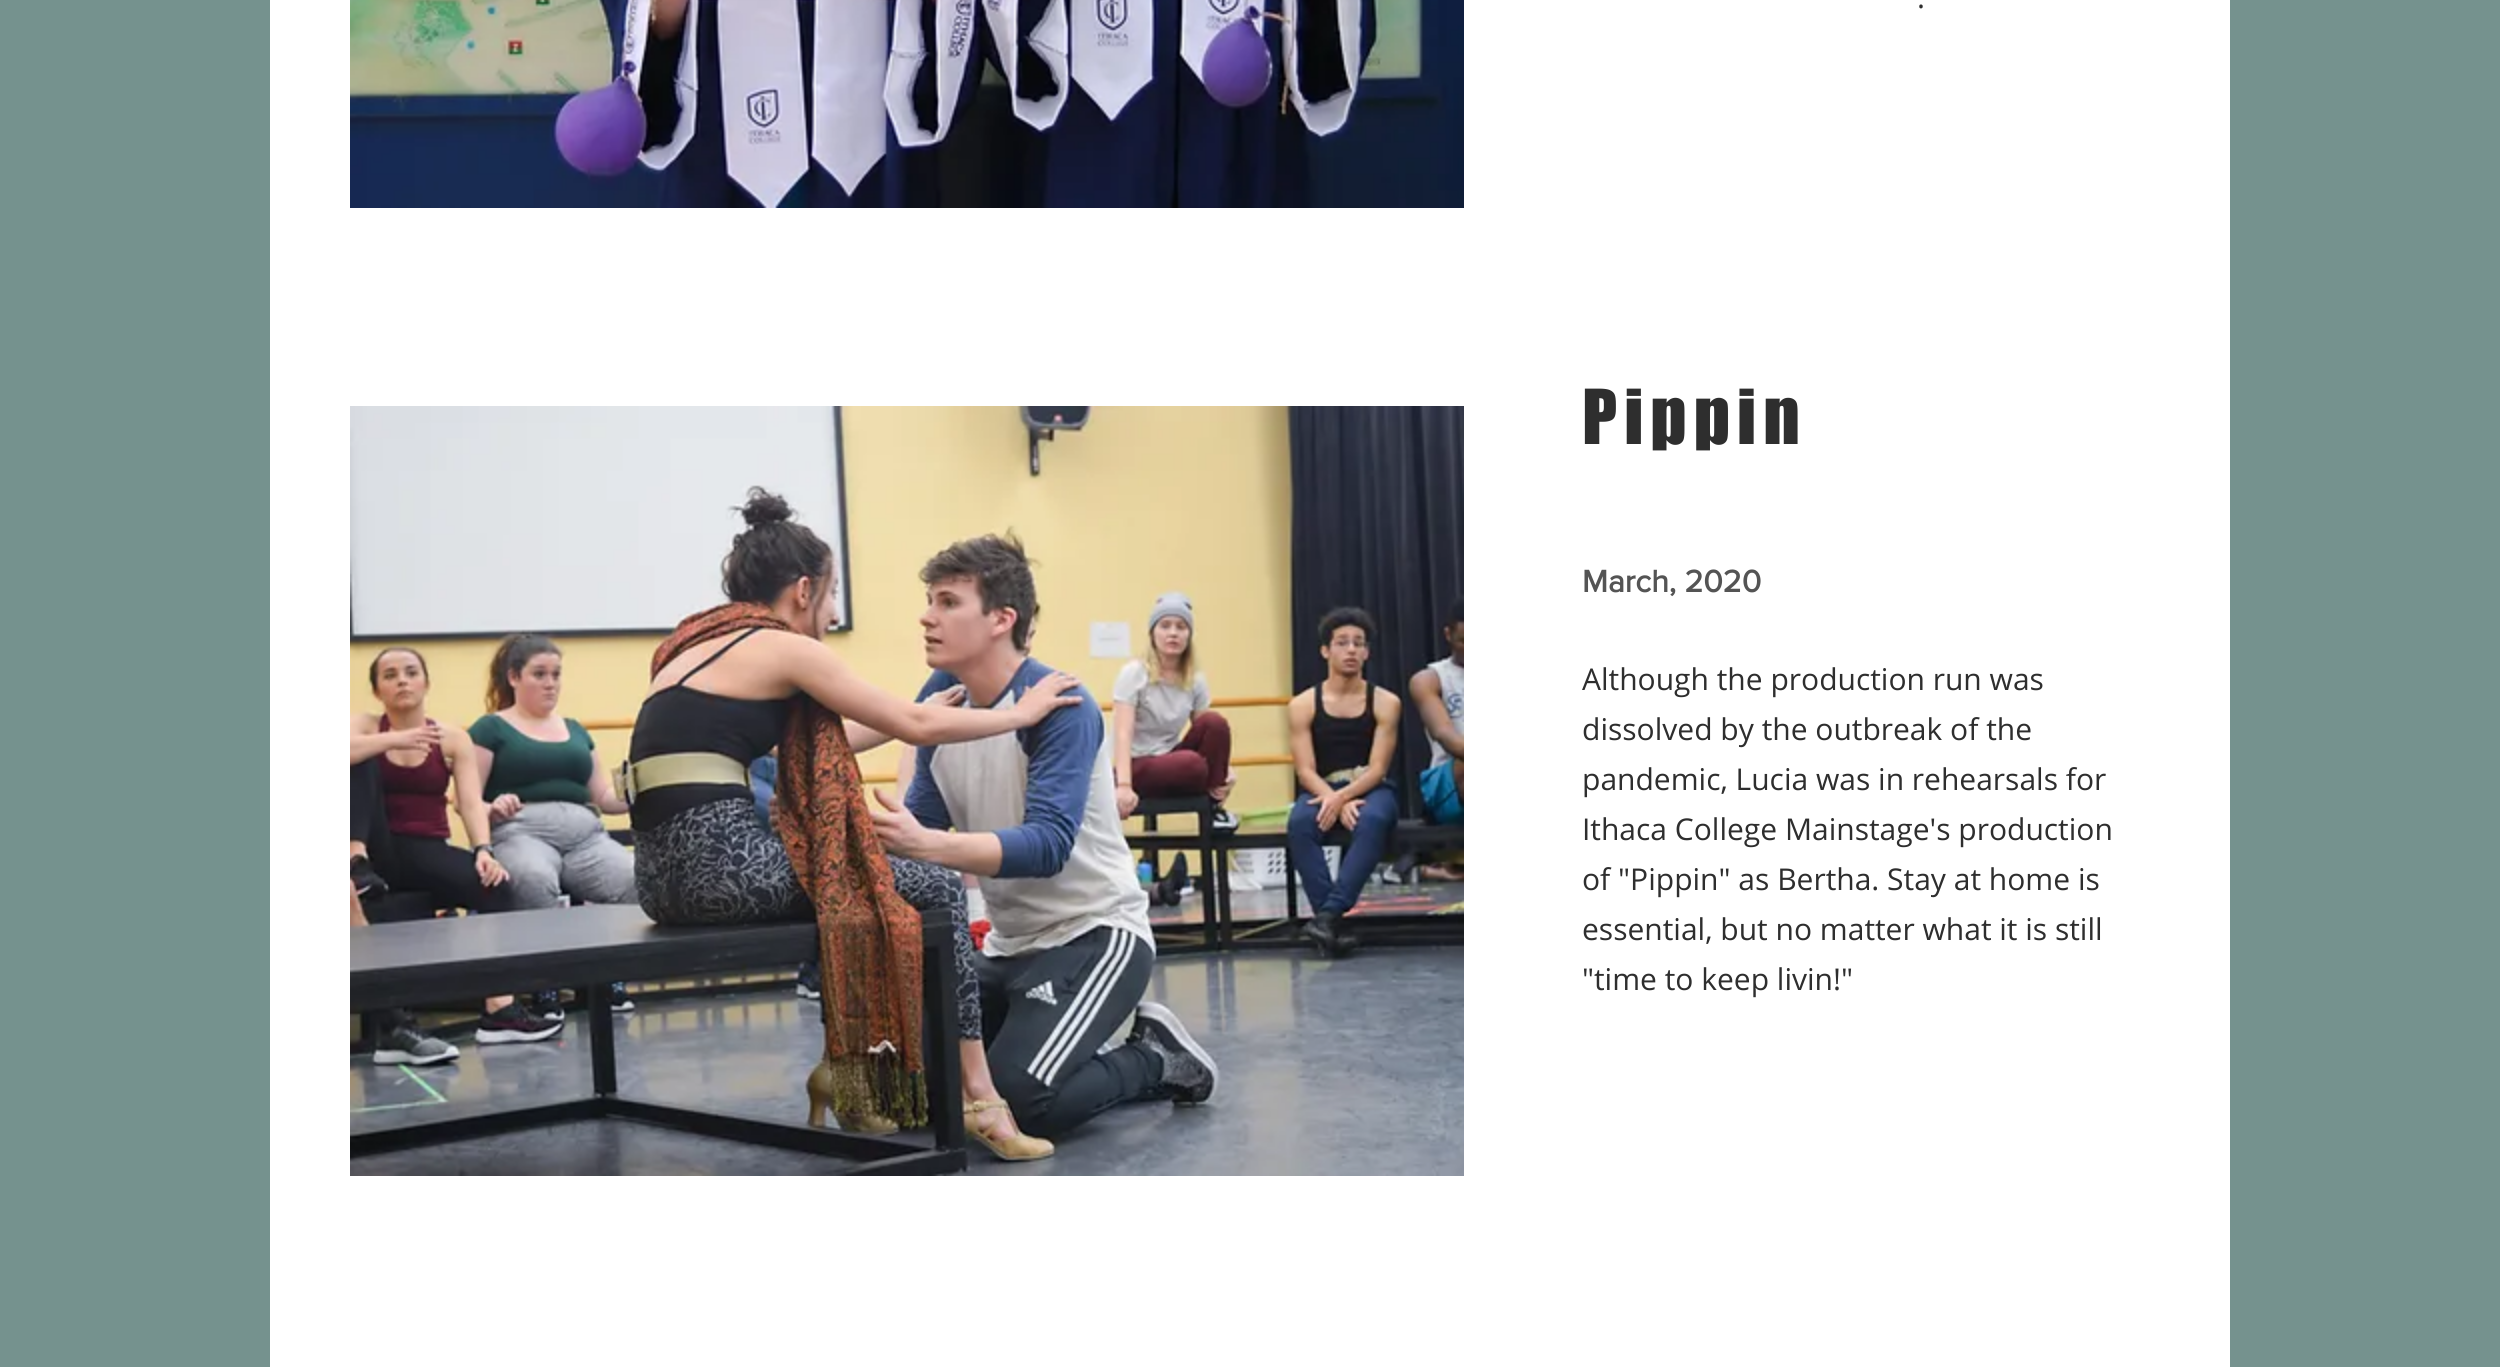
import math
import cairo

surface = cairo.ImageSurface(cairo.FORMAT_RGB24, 2500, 1367)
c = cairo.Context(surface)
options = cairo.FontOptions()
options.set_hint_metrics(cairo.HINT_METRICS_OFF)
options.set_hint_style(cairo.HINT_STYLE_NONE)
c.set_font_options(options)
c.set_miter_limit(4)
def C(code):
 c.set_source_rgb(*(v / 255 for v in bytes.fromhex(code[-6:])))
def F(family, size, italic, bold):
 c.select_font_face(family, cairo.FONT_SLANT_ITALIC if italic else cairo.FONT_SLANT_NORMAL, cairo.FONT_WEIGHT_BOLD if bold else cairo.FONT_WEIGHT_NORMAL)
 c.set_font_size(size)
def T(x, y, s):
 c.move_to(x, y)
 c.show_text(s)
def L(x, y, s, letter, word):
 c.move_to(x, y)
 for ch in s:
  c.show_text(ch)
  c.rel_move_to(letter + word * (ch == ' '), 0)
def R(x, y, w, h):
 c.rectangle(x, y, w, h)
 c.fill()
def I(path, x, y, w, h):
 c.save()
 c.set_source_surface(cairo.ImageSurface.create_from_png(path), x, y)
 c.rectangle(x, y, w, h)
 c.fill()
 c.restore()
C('75928e')
c.paint()
C('ffffff')
R(270,0,1960,1367)
I('1.png',350,0,1114,208)
F('Open Sans',30,0,0)
C('2e2e2e')
T(1917,8,'.')
I('2.png',350,406,1114,770)
F('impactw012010',70,0,0)
L(1582,444,'Pippin',7,0)
F('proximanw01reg',32,0,1)
C('545454')
T(1582,592,'March, 2020')
F('Open Sans',30,0,0)
C('2e2e2e')
T(1582,690,'Although the production run was')
T(1582,740,'dissolved by the outbreak of the')
T(1582,790,'pandemic, Lucia was in rehearsals for')
T(1582,840,'Ithaca College Mainstage\'s production')
T(1582,890,'of "Pippin" as Bertha. Stay at home is')
T(1582,940,'essential, but no matter what it is still')
T(1582,990,'"time to keep livin!"')
surface.write_to_png('o.png')
